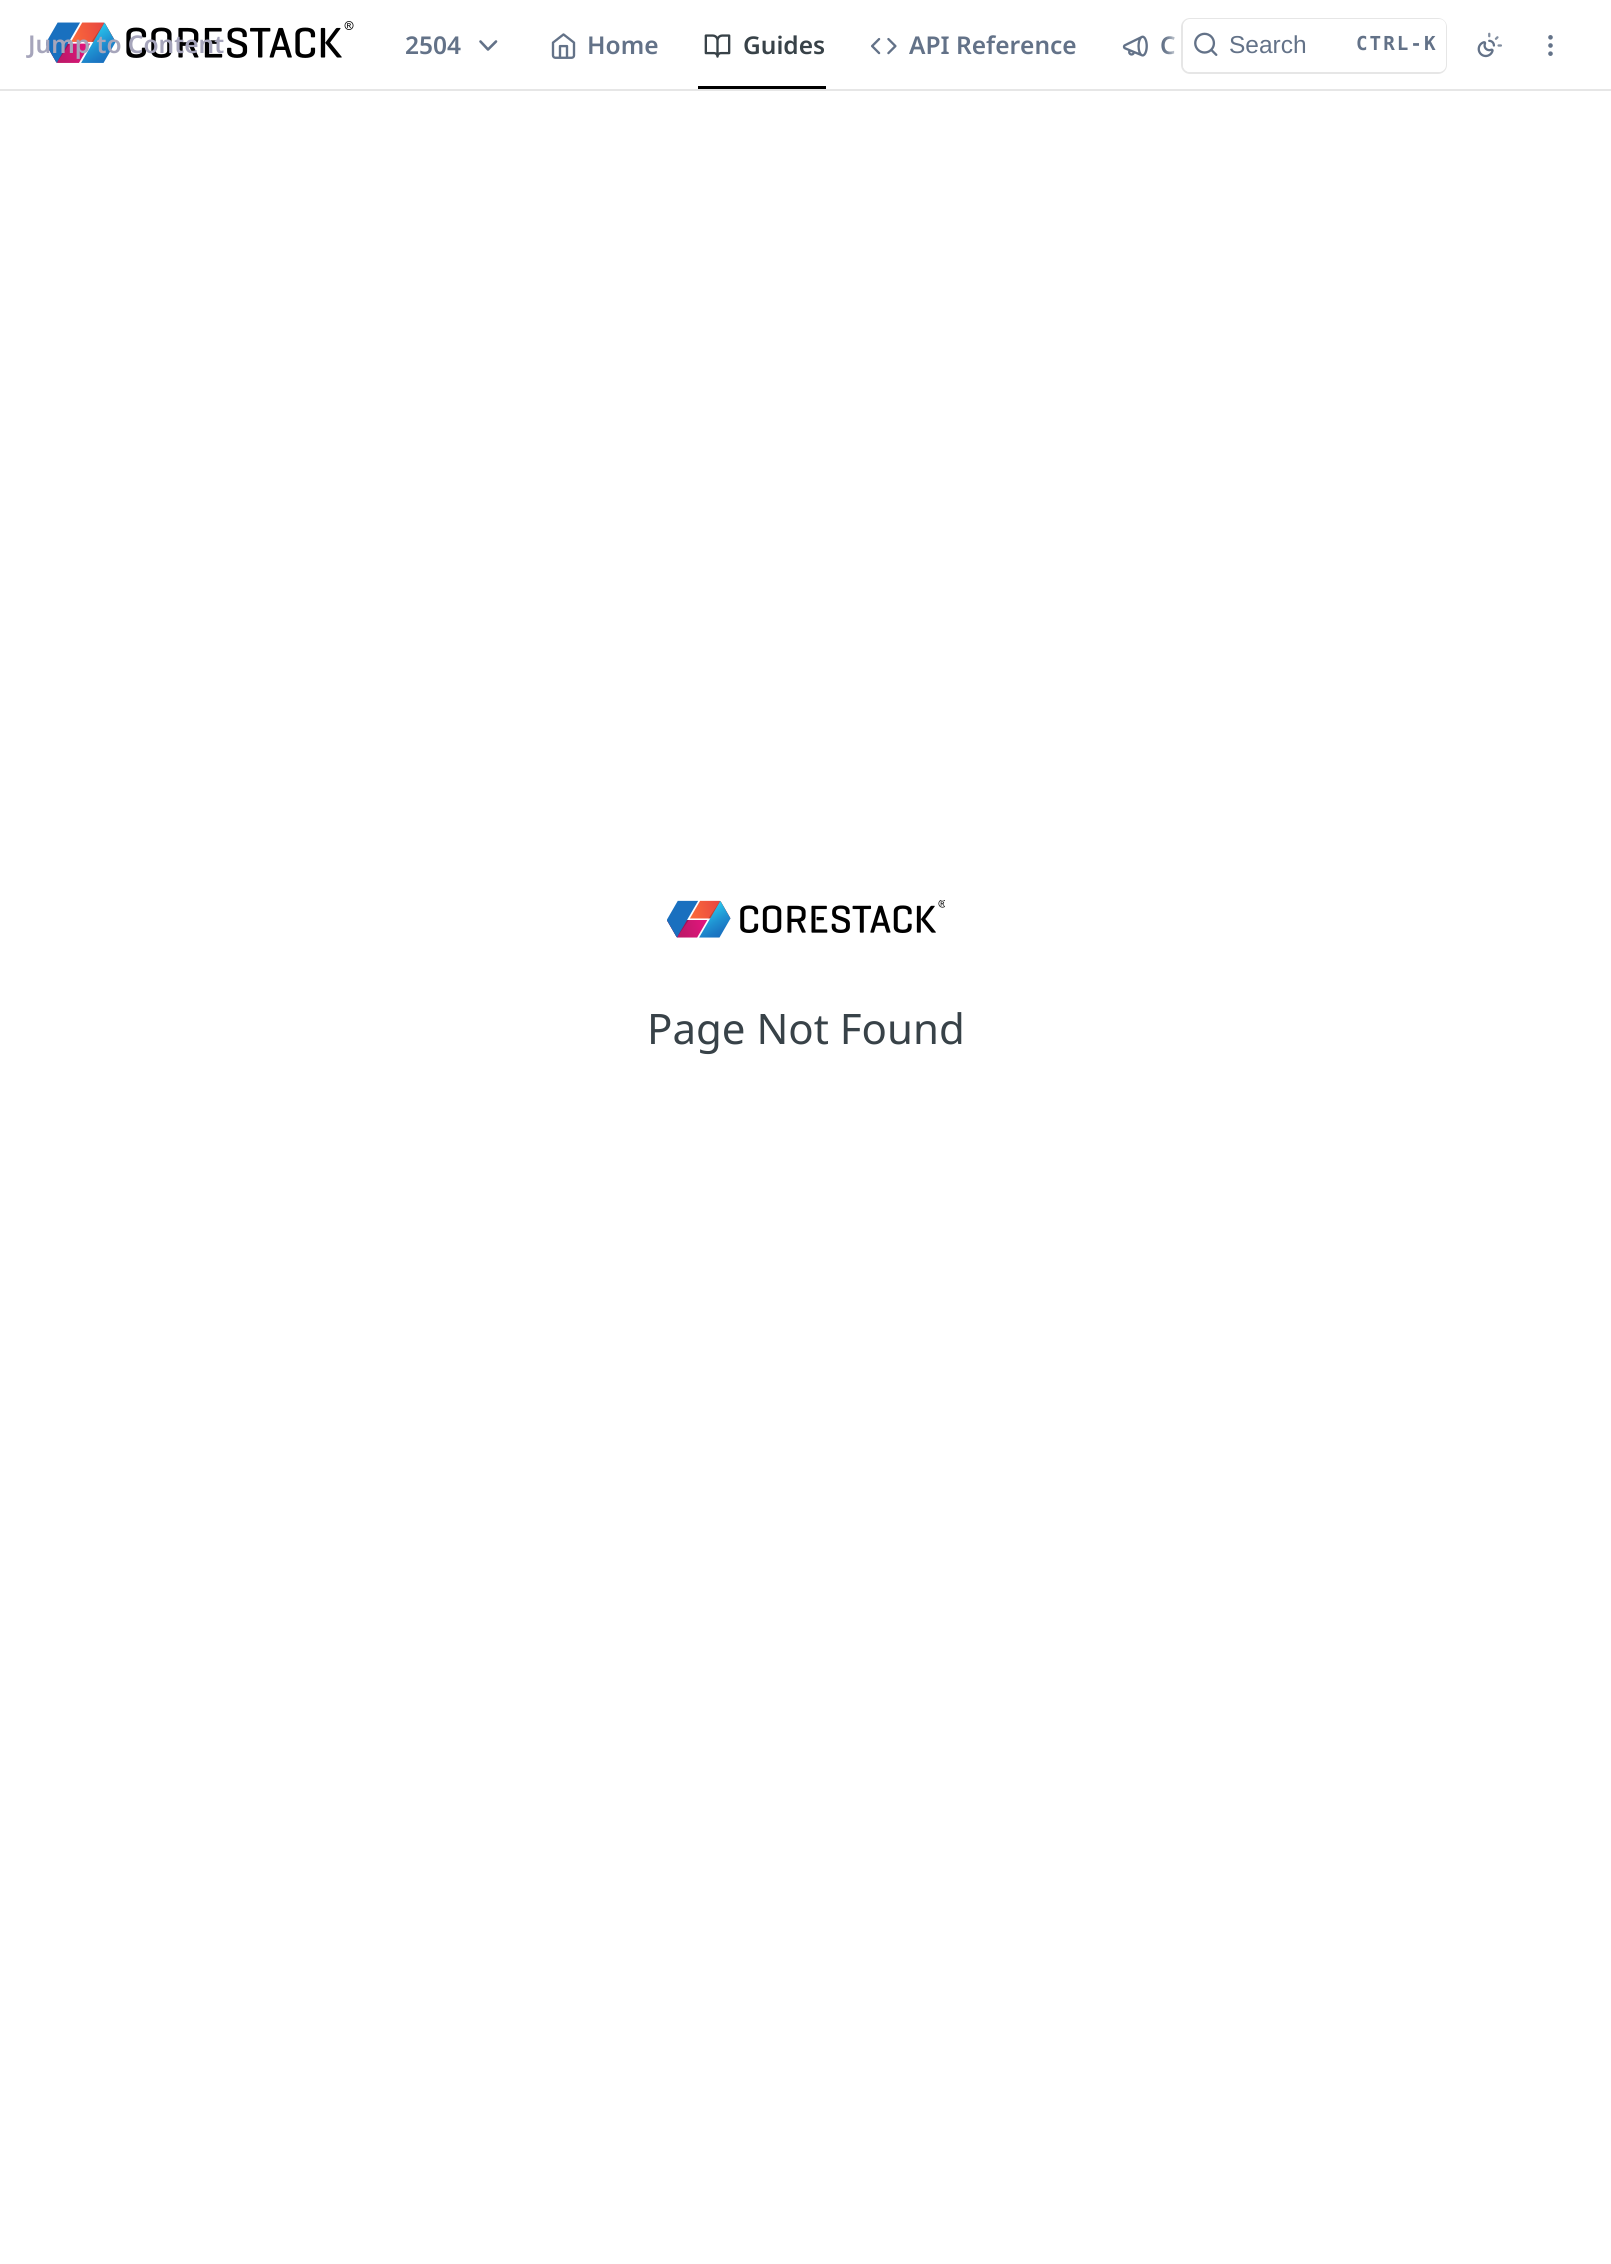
import math
import cairo

surface = cairo.ImageSurface(cairo.FORMAT_RGB24, 1611, 2264)
c = cairo.Context(surface)
options = cairo.FontOptions()
options.set_hint_metrics(cairo.HINT_METRICS_OFF)
options.set_hint_style(cairo.HINT_STYLE_NONE)
c.set_font_options(options)
c.set_miter_limit(4)
def C(code):
 c.set_source_rgb(*(v / 255 for v in bytes.fromhex(code[-6:])))
def F(family, size, italic, bold):
 c.select_font_face(family, cairo.FONT_SLANT_ITALIC if italic else cairo.FONT_SLANT_NORMAL, cairo.FONT_WEIGHT_BOLD if bold else cairo.FONT_WEIGHT_NORMAL)
 c.set_font_size(size)
def T(x, y, s):
 c.move_to(x, y)
 c.show_text(s)
def L(x, y, s, letter, word):
 c.move_to(x, y)
 for ch in s:
  c.show_text(ch)
  c.rel_move_to(letter + word * (ch == ' '), 0)
def R(x, y, w, h):
 c.rectangle(x, y, w, h)
 c.fill()
def Q(x, y, w, h, r):
 c.new_sub_path()
 for i, (u, v) in enumerate([(x + w - r, y + h - r), (x + r, y + h - r), (x + r, y + r), (x + w - r, y + r)]):
  c.arc(u, v, r, i * math.pi / 2, (i + 1) * math.pi / 2)
 c.close_path()
def S(x, y, w, h, r, blur, alpha):
 c.push_group_with_content(cairo.CONTENT_ALPHA)
 c.set_operator(cairo.OPERATOR_SOURCE)
 for i in range(15, -16, -2):
  e = blur * i / 6
  if min(w, h) + 2 * e > 0:
   c.set_source_rgba(0, 0, 0, alpha * math.erfc((i - 1) / 8.5) / 2)
   Q(x - e, y - e, w + 2 * e, h + 2 * e, max(0, min(r + e + blur * .6, min(w, h) / 2 + e)))
   c.fill()
 c.mask(c.pop_group())
def I(path, x, y, w, h):
 c.save()
 c.set_source_surface(cairo.ImageSurface.create_from_png(path), x, y)
 c.rectangle(x, y, w, h)
 c.fill()
 c.restore()
C('ffffff')
c.paint()
C('e6e6e6')
c.new_path()
c.move_to(0,89)
c.line_to(0,91)
c.line_to(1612,91)
c.line_to(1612,2)
c.line_to(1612,89)
c.close_path()
c.fill()
I('1.png',46,21,308,42)
I('2.png',1477,32,25,26)
I('3.png',1548,35,5,21)
F('Noto Sans SemiBold',24.5,0,0)
C('a6a5bb')
T(28,53,'Jump to Content')
C('637288')
T(405,54,'2504')
c.new_path()
c.move_to(480.5,41.5)
c.line_to(488,49.5)
c.line_to(496,41.5)
c.set_line_width(2.6)
c.set_line_cap(cairo.LINE_CAP_ROUND)
c.set_line_join(cairo.LINE_JOIN_ROUND)
c.stroke()
I('4.png',551,33,25,26)
T(587,54,'Home')
I('5.png',704,34,27,24)
C('384248')
T(743,54,'Guides')
I('6.png',871,37,26,18)
C('637288')
T(909,54,'API Reference')
I('7.png',1122,35,26,22)
T(1160,54,'C')
C('000000')
R(698,86,128,3)
c.save()
c.rectangle(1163,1,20,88)
c.clip()
C('ffffff')
S(1173,11,259,68,0,5,1)
c.restore()
Q(1182,19,264,54,8)
c.set_source_rgba(0,0,0,0.1)
c.set_line_width(2)
c.set_line_cap(cairo.LINE_CAP_BUTT)
c.set_line_join(cairo.LINE_JOIN_MITER)
c.stroke()
C('ffffff')
Q(1183,19,263,53,7)
c.fill()
I('8.png',1194,32,24,24)
F('Liberation Sans',24.5,0,0)
C('637288')
T(1229,53,'Search')
F('DejaVu Sans Mono',19.25,0,1)
L(1356,50,'CTRL-K',2,0)
I('9.png',667,900,278,38)
F('Noto Sans',42,0,0)
C('384248')
T(647,1044,'Page Not Found')
surface.write_to_png('o.png')
